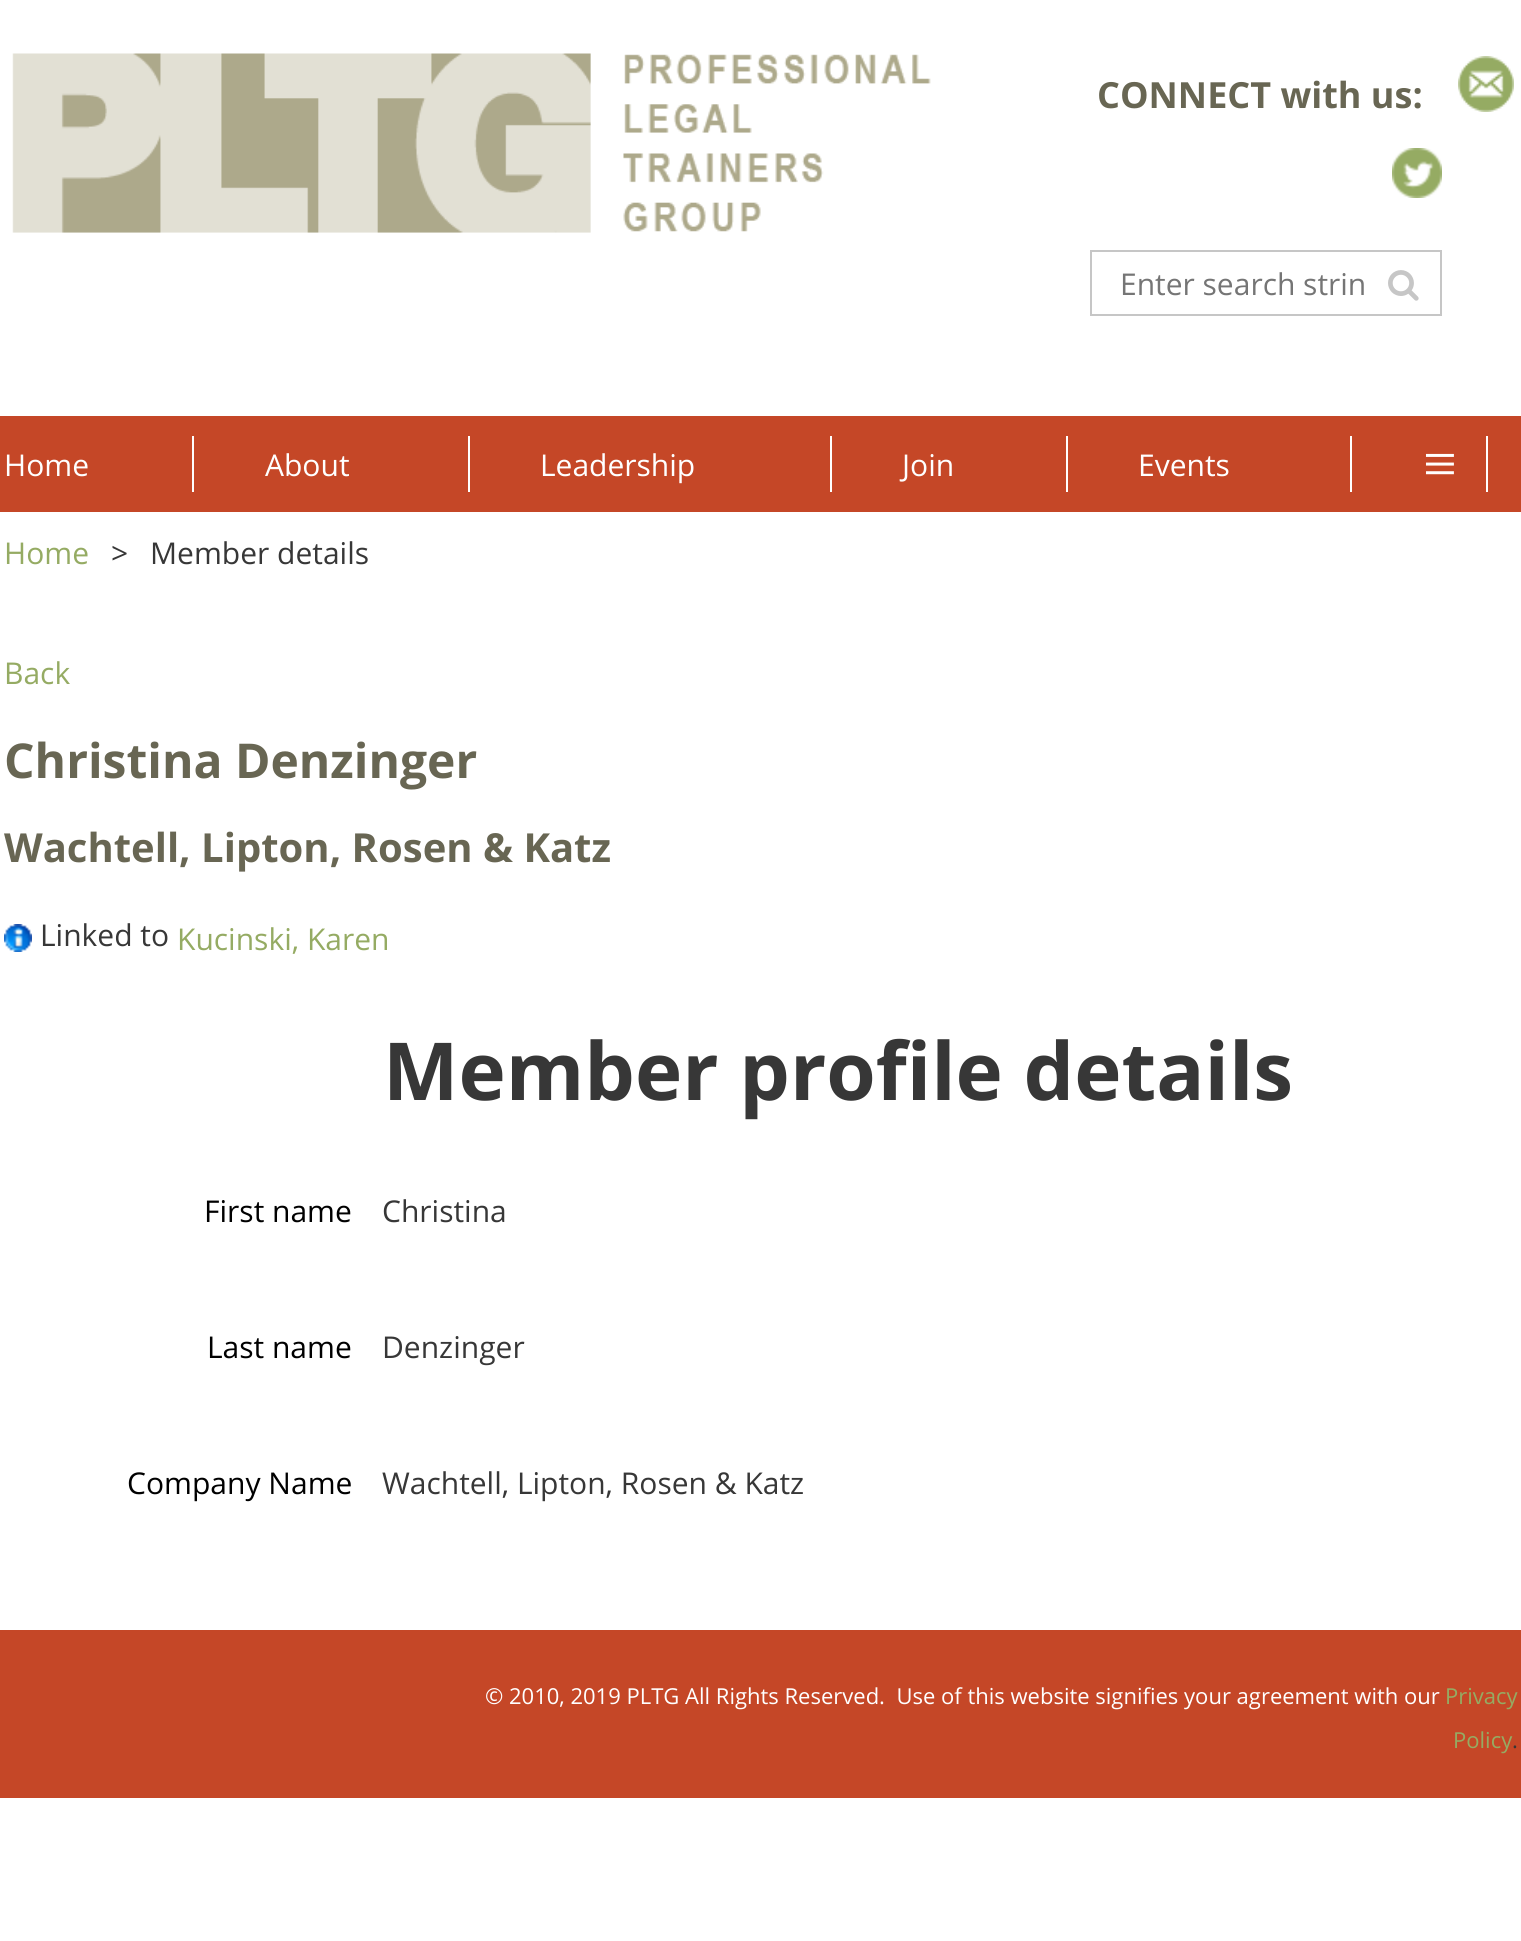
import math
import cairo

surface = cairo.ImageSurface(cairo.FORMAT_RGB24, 1521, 1941)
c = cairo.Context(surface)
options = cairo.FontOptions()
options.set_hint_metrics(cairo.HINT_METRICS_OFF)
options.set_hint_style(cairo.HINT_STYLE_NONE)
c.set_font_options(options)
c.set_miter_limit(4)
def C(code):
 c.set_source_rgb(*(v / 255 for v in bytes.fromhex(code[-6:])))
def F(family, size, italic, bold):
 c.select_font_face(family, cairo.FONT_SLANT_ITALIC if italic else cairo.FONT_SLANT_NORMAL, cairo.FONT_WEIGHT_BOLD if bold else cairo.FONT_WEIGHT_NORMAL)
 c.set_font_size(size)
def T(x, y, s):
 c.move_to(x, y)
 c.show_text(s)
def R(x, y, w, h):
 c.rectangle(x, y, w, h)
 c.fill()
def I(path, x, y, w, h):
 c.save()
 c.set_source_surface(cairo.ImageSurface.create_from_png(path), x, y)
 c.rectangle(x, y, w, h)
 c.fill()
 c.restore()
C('ffffff')
c.paint()
I('1.png',12,53,919,180)
F('Open Sans',36,0,1)
C('686653')
T(1097,108,'CONNECT with us:')
I('2.png',1392,148,50,50)
c.rectangle(1091,251,350,64)
C('c6c6c6')
c.stroke()
F('Open Sans',30,0,0)
C('757575')
T(1120,295,'Enter search strin')
I('3.png',1388,270,31,31)
I('4.png',1458,56,56,56)
C('c54727')
R(0,416,1521,96)
C('ffffff')
R(192,436,2,56)
T(4,476,'Home')
R(468,436,2,56)
T(265,476,'About')
R(830,436,2,56)
T(540,476,'Leadership')
R(1066,436,2,56)
T(902,476,'Join')
R(1350,436,2,56)
T(1138,476,'Events')
R(1486,436,2,56)
F('Liberation Serif',60,0,0)
T(1423,484,'≡')
F('Open Sans',30,0,0)
C('95ab63')
T(4,564,'Home')
C('373737')
T(111,564,'>')
T(150,564,'Member details')
C('95ab63')
T(4,684,'Back')
F('Open Sans',48,0,1)
C('686653')
T(4,778,'Christina Denzinger')
F('Open Sans',40,0,1)
T(4,862,'Wachtell, Lipton, Rosen & Katz')
I('5.png',4,924,28,28)
F('Open Sans',30,0,0)
C('373737')
T(40,946,'Linked to')
C('95ab63')
T(177,950,'Kucinski, Karen')
F('Open Sans',80,0,1)
C('373737')
T(383,1100,'Member profile details')
F('Open Sans',30,0,0)
C('000000')
T(204,1222,'First name')
C('373737')
T(382,1222,'Christina')
C('000000')
T(207,1358,'Last name')
C('373737')
T(382,1358,'Denzinger')
C('000000')
T(127,1494,'Company Name')
C('373737')
T(382,1494,'Wachtell, Lipton, Rosen & Katz')
C('c54727')
R(0,1630,1521,168)
F('Open Sans',22,0,0)
C('ffffff')
T(485,1704,'© 2010, 2019 PLTG All Rights Reserved.  Use of this website signifies your agreement with our')
C('95ab63')
T(1445,1704,'Privacy')
T(1453,1748,'Policy')
C('373737')
T(1512,1748,'.')
surface.write_to_png('o.png')
